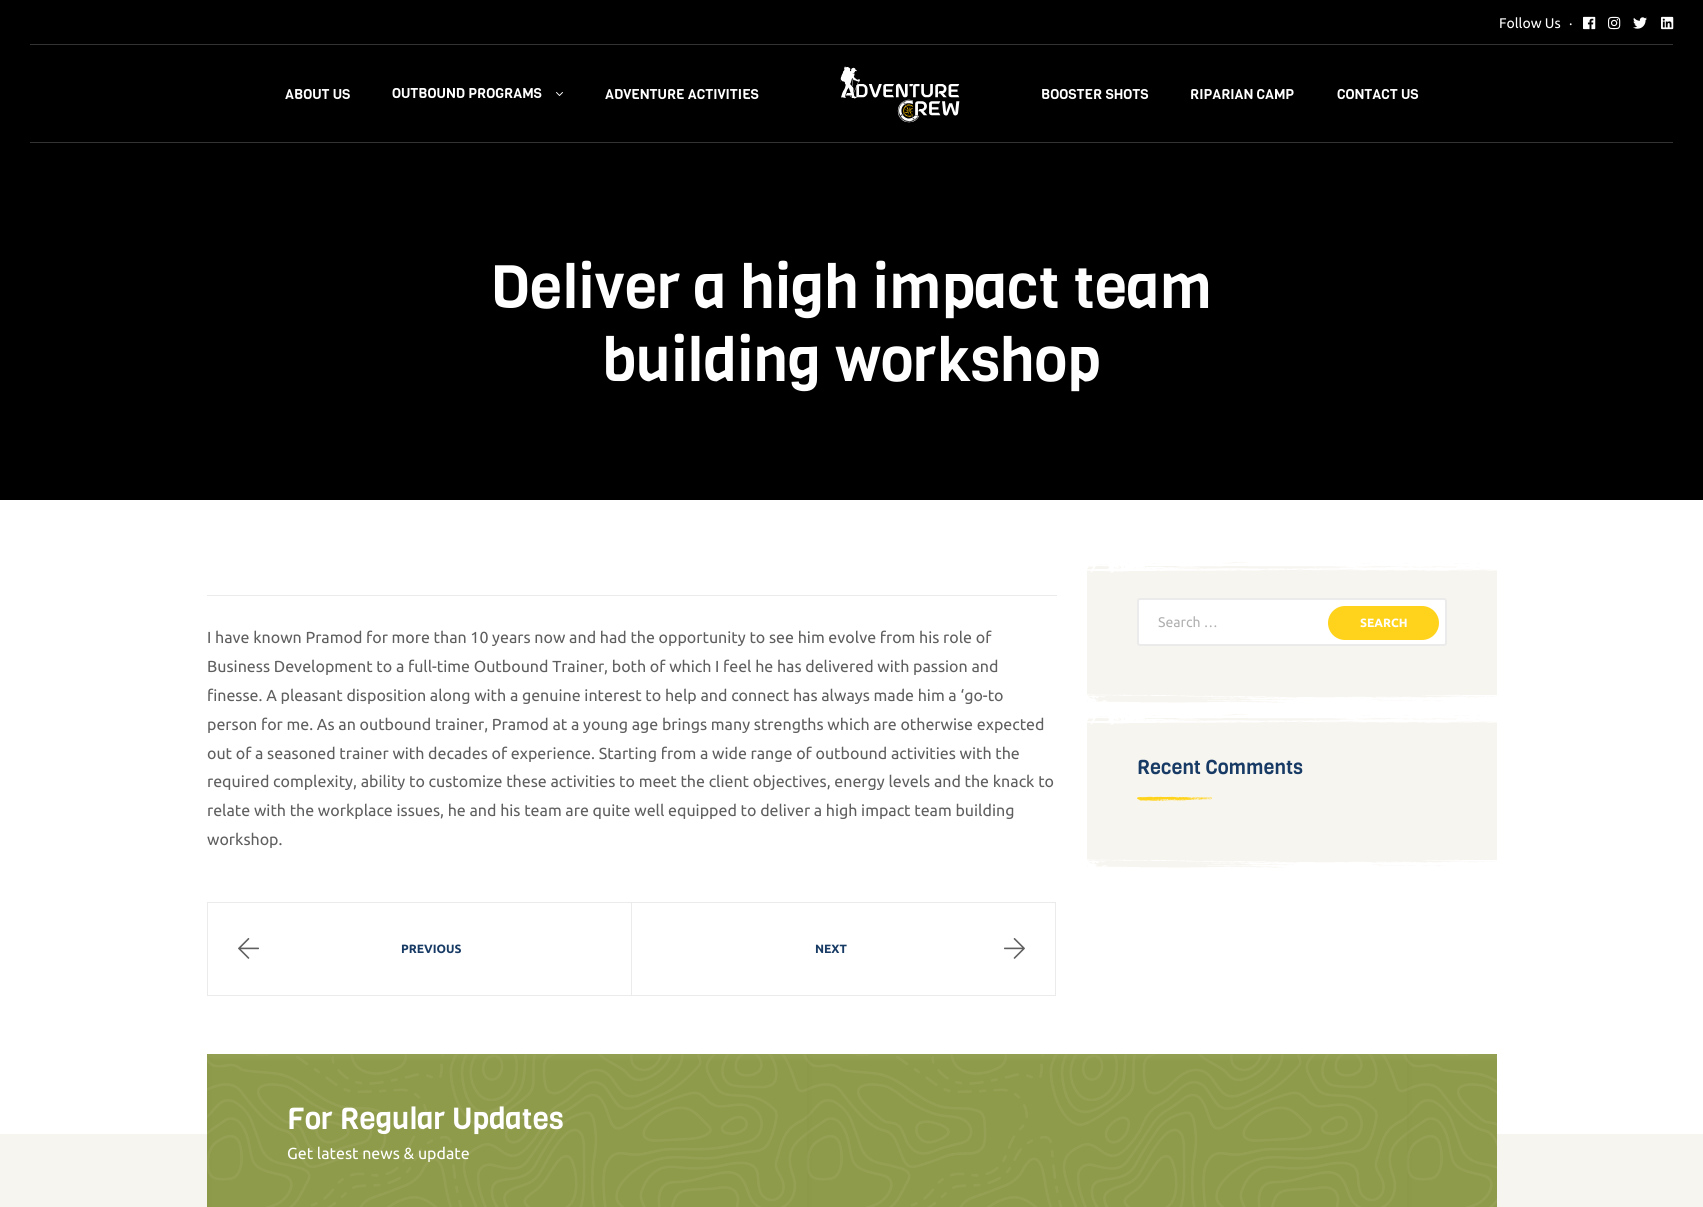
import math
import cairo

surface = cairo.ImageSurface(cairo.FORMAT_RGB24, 1703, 1207)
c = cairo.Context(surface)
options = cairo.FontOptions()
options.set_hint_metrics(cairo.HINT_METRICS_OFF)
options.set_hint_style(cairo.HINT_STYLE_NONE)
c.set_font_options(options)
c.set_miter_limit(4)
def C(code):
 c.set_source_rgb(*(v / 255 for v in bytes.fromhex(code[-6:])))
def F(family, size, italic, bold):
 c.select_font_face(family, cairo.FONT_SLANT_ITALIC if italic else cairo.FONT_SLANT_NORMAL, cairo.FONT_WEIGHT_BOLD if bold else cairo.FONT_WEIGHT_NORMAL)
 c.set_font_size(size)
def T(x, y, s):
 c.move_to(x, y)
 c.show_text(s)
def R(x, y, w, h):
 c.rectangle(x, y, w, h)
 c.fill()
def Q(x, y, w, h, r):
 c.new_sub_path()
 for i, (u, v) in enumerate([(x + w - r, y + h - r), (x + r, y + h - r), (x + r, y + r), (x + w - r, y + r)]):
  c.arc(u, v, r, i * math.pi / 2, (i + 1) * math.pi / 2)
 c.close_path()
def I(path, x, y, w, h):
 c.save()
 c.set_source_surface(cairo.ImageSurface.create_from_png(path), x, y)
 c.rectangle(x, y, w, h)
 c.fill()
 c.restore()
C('ffffff')
c.paint()
C('000000')
R(0,0,1703,500)
F('Ubuntu',14,0,0)
C('ffffff')
T(1499,28,'Follow Us')
T(1569,25,'.')
I('1.png',1583,16,13,14)
I('2.png',1608,16,13,14)
I('3.png',1633,17,14,12)
I('4.png',1661,16,13,14)
C('333333')
R(30,44,1643,1)
F('Viga',14,0,0)
C('ffffff')
T(285,99,'ABOUT US')
T(392,98,'OUTBOUND PROGRAMS')
I('5.png',556,92,7,4)
T(605,99,'ADVENTURE ACTIVITIES')
I('6.png',840,66,120,57)
T(1041,99,'BOOSTER SHOTS')
T(1190,99,'RIPARIAN CAMP')
T(1337,99,'CONTACT US')
C('333333')
R(30,142,1643,1)
F('Viga',60,0,0)
C('ffffff')
T(490,308,'Deliver a high impact team')
T(603,381,'building workshop')
C('ebebeb')
R(207,595,850,1)
F('Ubuntu',16,0,0)
C('5f5f5f')
T(207,643,'I have known Pramod for more than 10 years now and had the opportunity to see him evolve from his role of')
T(207,672,'Business Development to a full-time Outbound Trainer, both of which I feel he has delivered with passion and')
T(207,701,'finesse. A pleasant disposition along with a genuine interest to help and connect has always made him a ‘go-to')
T(207,730,'person for me. As an outbound trainer, Pramod at a young age brings many strengths which are otherwise expected')
T(207,759,'out of a seasoned trainer with decades of experience. Starting from a wide range of outbound activities with the')
T(207,787,'required complexity, ability to customize these activities to meet the client objectives, energy levels and the knack to')
T(207,816,'relate with the workplace issues, he and his team are quite well equipped to deliver a high impact team building')
T(207,845,'workshop.')
c.rectangle(207.5,902.5,424,93)
C('ebebeb')
c.set_line_width(1)
c.stroke()
I('7.png',238,938,21,21)
F('Ubuntu',12,0,1)
C('183b65')
T(401,953,'PREVIOUS')
c.rectangle(631.5,902.5,424,93)
C('ebebeb')
c.stroke()
C('183b65')
T(815,953,'NEXT')
I('8.png',1004,938,21,21)
C('f7f5f0')
R(1087,578,410,110)
I('9.png',1087,562,410,16)
C('ffffff')
Q(1138,599,308,46,2)
c.fill_preserve()
C('ebebeb')
c.set_line_width(2)
c.stroke()
F('Ubuntu',14,0,0)
C('b0b0b0')
T(1158,627,'Search …')
C('ffd31c')
Q(1328,606,111,34,17)
c.fill()
F('Ubuntu',12,0,1)
C('ffffff')
T(1360,627,'SEARCH')
I('10.png',1087,688,410,15)
C('f7f5f0')
R(1087,730,410,123)
I('9.png',1087,714,410,16)
F('Viga',20,0,0)
C('183b65')
T(1137,774,'Recent Comments')
I('11.png',1137,796,76,5)
I('10.png',1087,853,410,15)
C('f7f5f0')
R(0,1134,1703,73)
C('8e9b4a')
R(207,1054,1290,153)
I('12.png',207,1054,1290,153)
F('Viga',30,0,0)
C('ffffff')
T(287,1129,'For Regular Updates')
F('Ubuntu',16,0,0)
T(287,1159,'Get latest news & update')
surface.write_to_png('o.png')
